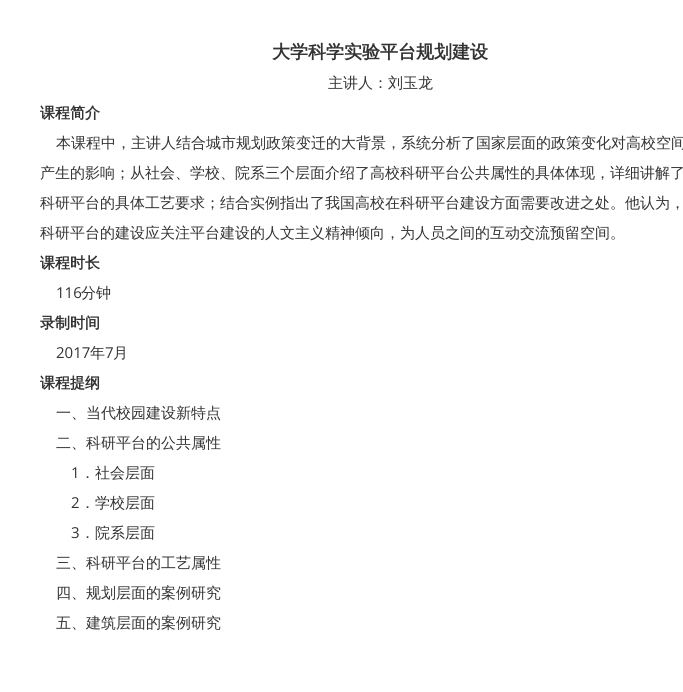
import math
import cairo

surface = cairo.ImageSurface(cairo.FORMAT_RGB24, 683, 692)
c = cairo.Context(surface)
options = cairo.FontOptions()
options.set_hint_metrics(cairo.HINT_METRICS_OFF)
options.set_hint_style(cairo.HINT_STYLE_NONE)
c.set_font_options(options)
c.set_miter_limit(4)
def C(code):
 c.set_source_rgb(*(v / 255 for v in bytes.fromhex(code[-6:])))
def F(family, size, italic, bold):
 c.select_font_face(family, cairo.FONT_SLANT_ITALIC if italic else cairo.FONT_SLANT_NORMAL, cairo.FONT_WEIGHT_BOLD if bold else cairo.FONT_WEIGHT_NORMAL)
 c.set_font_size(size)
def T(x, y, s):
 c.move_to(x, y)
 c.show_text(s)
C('ffffff')
c.paint()
F('WenQuanYi Zen Hei',18,0,1)
C('333333')
T(272,58,'大学科学实验平台规划建设')
F('WenQuanYi Zen Hei Medium',15,0,0)
T(328,88,'主讲人：刘玉龙')
F('WenQuanYi Zen Hei',15,0,1)
T(40,118,'课程简介')
F('WenQuanYi Zen Hei Medium',15,0,0)
T(56,148,'本课程中，主讲人结合城市规划政策变迁的大背景，系统分析了国家层面的政策变化对高校空间')
T(40,178,'产生的影响；从社会、学校、院系三个层面介绍了高校科研平台公共属性的具体体现，详细讲解了')
T(40,208,'科研平台的具体工艺要求；结合实例指出了我国高校在科研平台建设方面需要改进之处。他认为，')
T(40,238,'科研平台的建设应关注平台建设的人文主义精神倾向，为人员之间的互动交流预留空间。')
F('WenQuanYi Zen Hei',15,0,1)
T(40,268,'课程时长')
F('Open Sans',15,0,0)
T(56,298,'116')
F('WenQuanYi Zen Hei Medium',15,0,0)
T(81,298,'分钟')
F('WenQuanYi Zen Hei',15,0,1)
T(40,328,'录制时间')
F('Open Sans',15,0,0)
T(56,358,'2017')
F('WenQuanYi Zen Hei Medium',15,0,0)
T(90,358,'年')
F('Open Sans',15,0,0)
T(105,358,'7')
F('WenQuanYi Zen Hei Medium',15,0,0)
T(113,358,'月')
F('WenQuanYi Zen Hei',15,0,1)
T(40,388,'课程提纲')
F('WenQuanYi Zen Hei Medium',15,0,0)
T(56,418,'一、当代校园建设新特点')
T(56,448,'二、科研平台的公共属性')
F('Open Sans',15,0,0)
T(71,478,'1')
F('WenQuanYi Zen Hei Medium',15,0,0)
T(80,478,'．社会层面')
F('Open Sans',15,0,0)
T(71,508,'2')
F('WenQuanYi Zen Hei Medium',15,0,0)
T(80,508,'．学校层面')
F('Open Sans',15,0,0)
T(71,538,'3')
F('WenQuanYi Zen Hei Medium',15,0,0)
T(80,538,'．院系层面')
T(56,568,'三、科研平台的工艺属性')
T(56,598,'四、规划层面的案例研究')
T(56,628,'五、建筑层面的案例研究')
surface.write_to_png('o.png')
